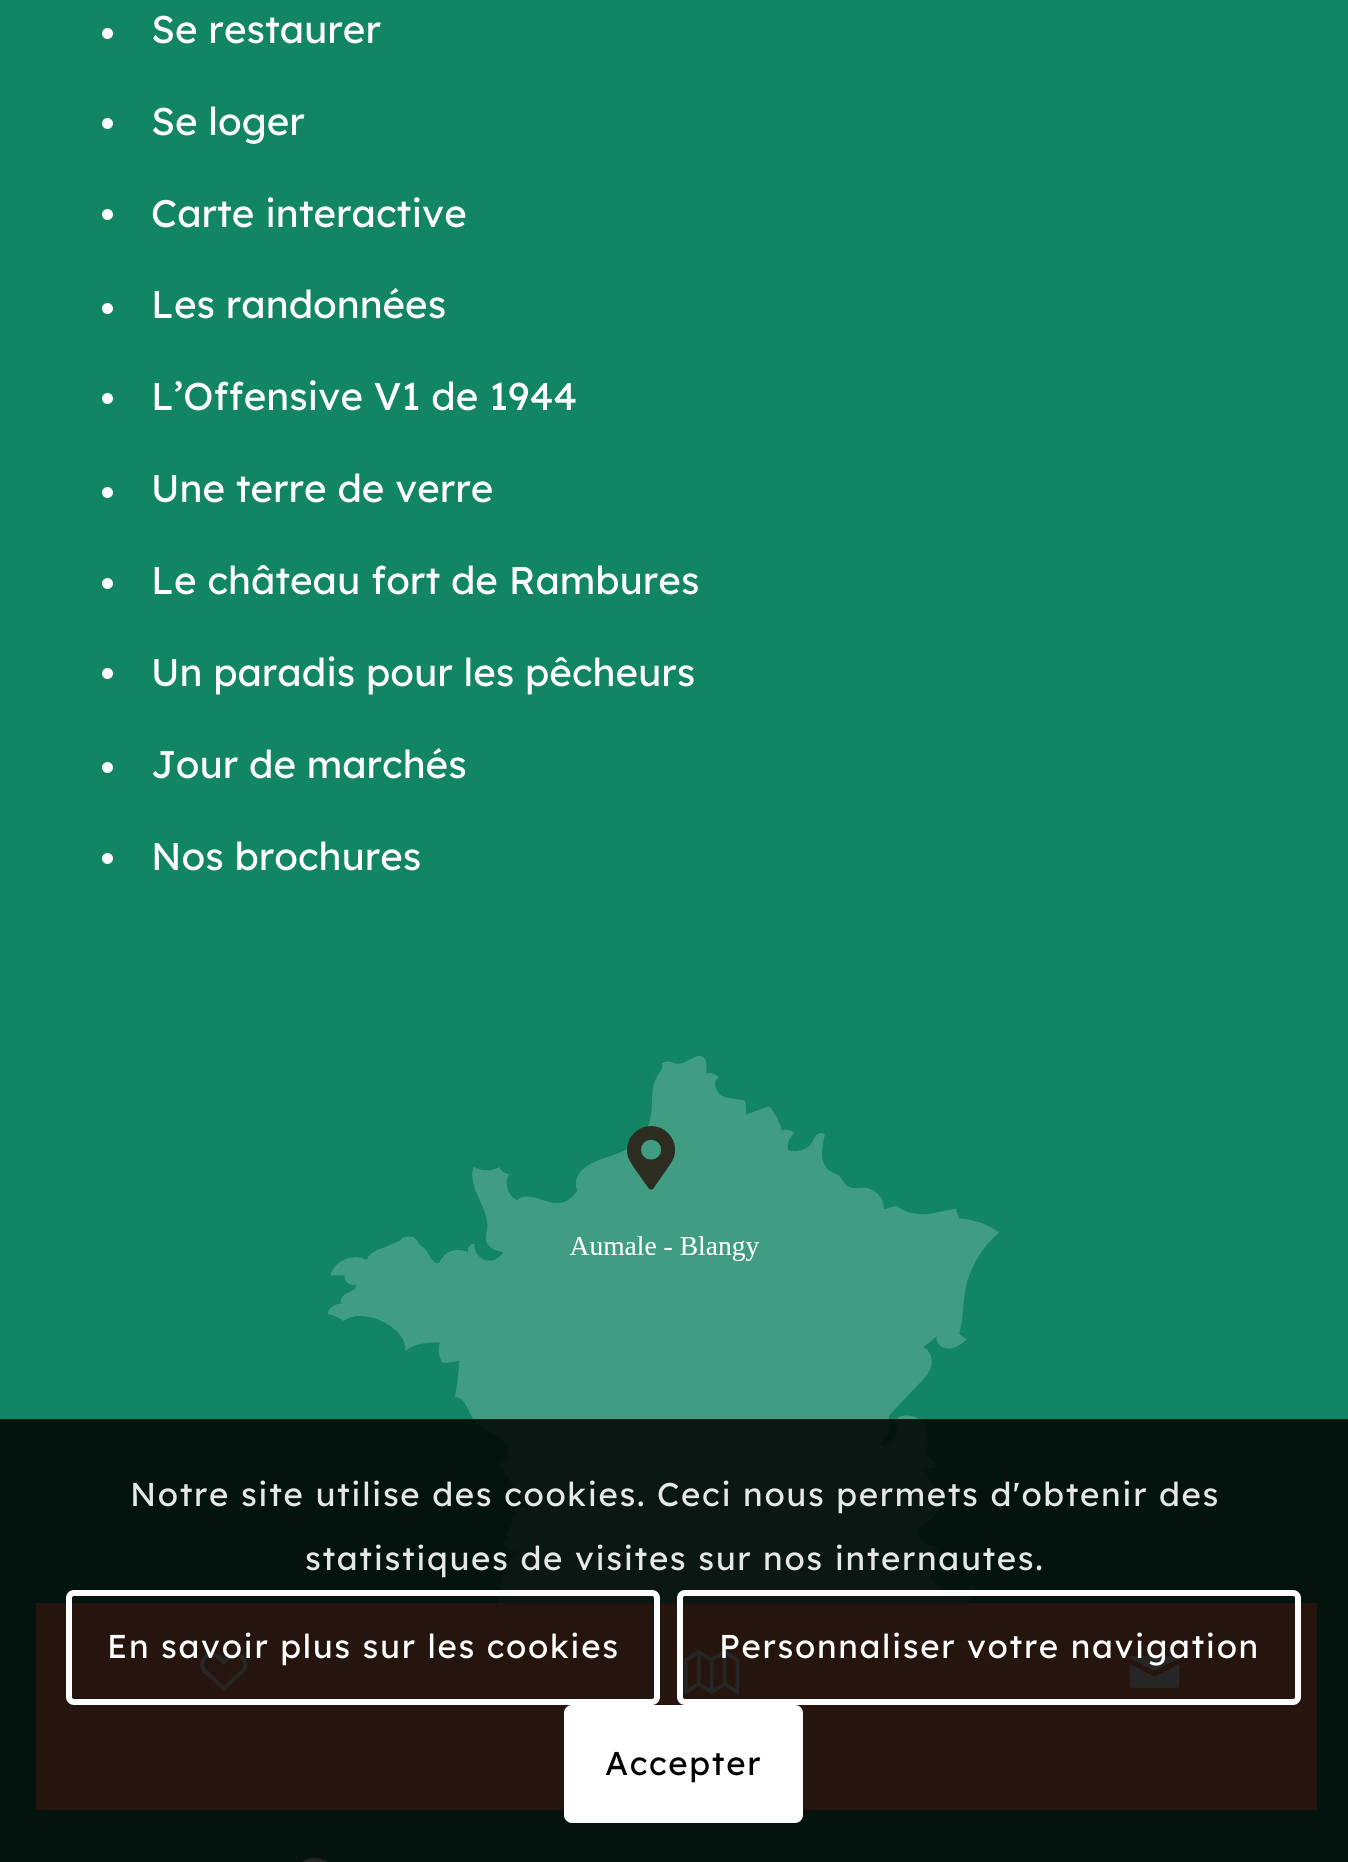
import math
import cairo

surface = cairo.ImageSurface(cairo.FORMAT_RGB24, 1348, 1862)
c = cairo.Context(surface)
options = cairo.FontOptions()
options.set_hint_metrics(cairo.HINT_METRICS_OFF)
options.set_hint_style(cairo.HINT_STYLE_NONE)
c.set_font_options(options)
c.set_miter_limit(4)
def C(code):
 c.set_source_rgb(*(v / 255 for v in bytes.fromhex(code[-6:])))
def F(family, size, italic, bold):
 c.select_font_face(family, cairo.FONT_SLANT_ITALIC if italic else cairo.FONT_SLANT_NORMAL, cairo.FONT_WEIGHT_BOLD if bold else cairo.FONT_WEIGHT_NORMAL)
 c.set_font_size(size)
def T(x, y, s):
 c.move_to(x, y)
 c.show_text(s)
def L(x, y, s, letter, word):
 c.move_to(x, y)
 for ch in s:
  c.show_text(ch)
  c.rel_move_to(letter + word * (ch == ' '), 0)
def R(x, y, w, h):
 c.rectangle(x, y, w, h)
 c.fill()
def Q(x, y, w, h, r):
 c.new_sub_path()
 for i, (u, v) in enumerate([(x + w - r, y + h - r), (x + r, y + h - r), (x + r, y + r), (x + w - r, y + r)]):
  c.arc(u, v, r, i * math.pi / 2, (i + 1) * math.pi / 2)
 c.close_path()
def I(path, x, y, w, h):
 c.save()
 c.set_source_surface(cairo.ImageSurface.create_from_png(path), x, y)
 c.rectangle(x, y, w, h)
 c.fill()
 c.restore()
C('128563')
c.paint()
C('ffffff')
c.arc(107.5,33.5,5.5,0,2 * math.pi)
c.fill()
F('Lexend',38.5,0,0)
T(151,43,'Se restaurer')
c.new_path()
c.arc(107.5,123.5,5.5,0,2 * math.pi)
c.fill()
T(151,135,'Se loger')
c.new_path()
c.arc(107.5,214.5,5.5,0,2 * math.pi)
c.fill()
T(151,227,'Carte interactive')
c.new_path()
c.arc(107.5,308.5,5.5,0,2 * math.pi)
c.fill()
T(151,318,'Les randonnées')
c.new_path()
c.arc(107.5,398.5,5.5,0,2 * math.pi)
c.fill()
T(151,410,'L’Offensive V1 de 1944')
c.new_path()
c.arc(107.5,492.5,5.5,0,2 * math.pi)
c.fill()
T(151,502,'Une terre de verre')
c.new_path()
c.arc(107.5,583.5,5.5,0,2 * math.pi)
c.fill()
T(151,594,'Le château fort de Rambures')
c.new_path()
c.arc(107.5,673.5,5.5,0,2 * math.pi)
c.fill()
T(151,686,'Un paradis pour les pêcheurs')
c.new_path()
c.arc(107.5,767.5,5.5,0,2 * math.pi)
c.fill()
T(151,778,'Jour de marchés')
c.new_path()
c.arc(107.5,858.5,5.5,0,2 * math.pi)
c.fill()
T(151,870,'Nos brochures')
I('1.png',327,1056,672,547)
c.new_path()
c.move_to(315,1858)
c.curve_to(320,1858,326,1860,329,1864)
c.curve_to(346,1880,325,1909,315,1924)
c.curve_to(304,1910,285,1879,300,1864)
c.curve_to(304,1860,309,1858,315,1858)
c.close_path()
c.move_to(315,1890)
c.curve_to(330,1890,330,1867,315,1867)
c.curve_to(300,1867,300,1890,315,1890)
c.close_path()
c.fill()
C('ff8e5c')
R(36,1603,1281,207)
I('2.png',200,1652,48,40)
I('3.png',684,1650,56,44)
I('4.png',1129,1656,51,32)
c.set_source_rgba(0,0,0,0.85)
R(0,1419,1348,443)
F('Lexend',33,0,0)
C('e6e8e7')
L(130,1506,'Notre site utilise des cookies. Ceci nous permets d\'obtenir des',1.65,0)
L(305,1570,'statistiques de visites sur nos internautes.',1.65,0)
Q(69,1593,588,109,5)
C('ffffff')
c.set_line_width(6)
c.stroke()
L(107,1658,'En savoir plus sur les cookies',1.65,0)
Q(680,1593,618,109,5)
c.stroke()
L(719,1658,'Personnaliser votre navigation',1.65,0)
Q(564,1705,239,118,8)
c.fill()
C('000000')
L(605,1775,'Accepter',1.65,0)
surface.write_to_png('o.png')
